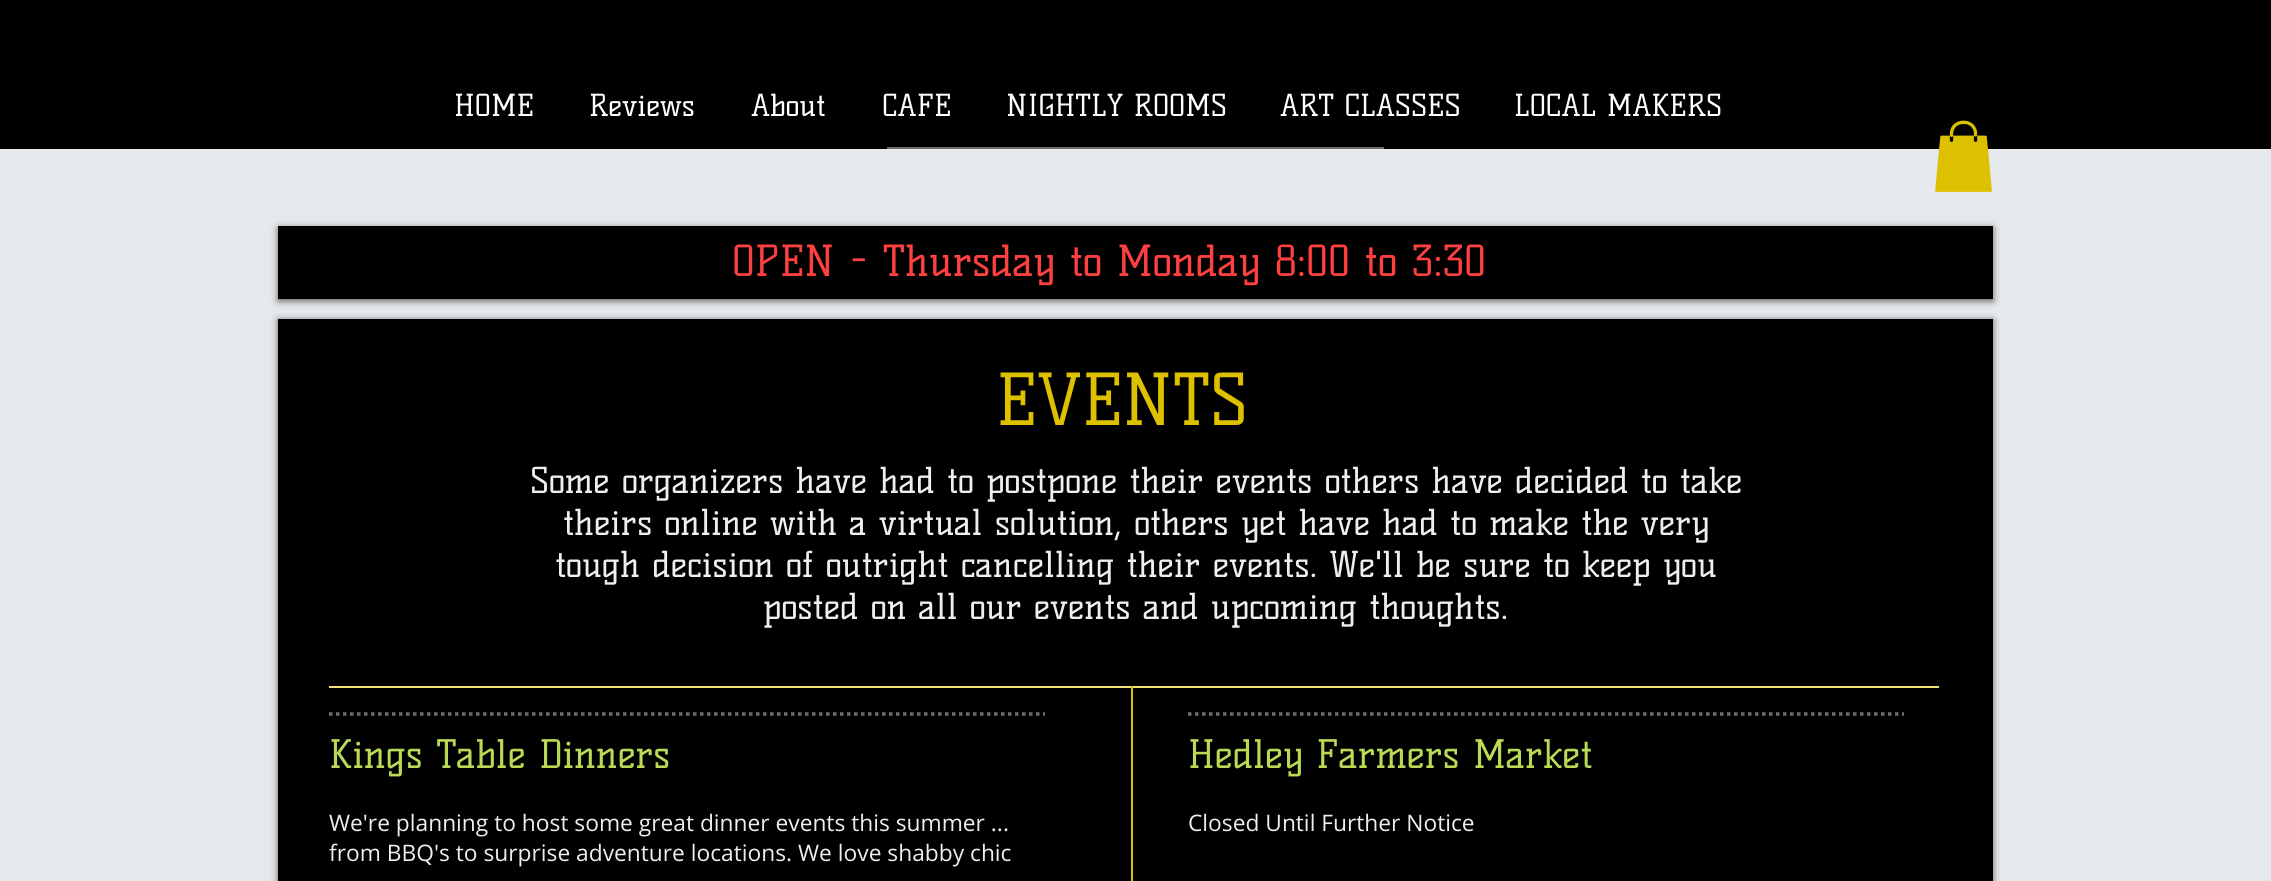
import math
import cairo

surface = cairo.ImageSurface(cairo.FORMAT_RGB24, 2271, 881)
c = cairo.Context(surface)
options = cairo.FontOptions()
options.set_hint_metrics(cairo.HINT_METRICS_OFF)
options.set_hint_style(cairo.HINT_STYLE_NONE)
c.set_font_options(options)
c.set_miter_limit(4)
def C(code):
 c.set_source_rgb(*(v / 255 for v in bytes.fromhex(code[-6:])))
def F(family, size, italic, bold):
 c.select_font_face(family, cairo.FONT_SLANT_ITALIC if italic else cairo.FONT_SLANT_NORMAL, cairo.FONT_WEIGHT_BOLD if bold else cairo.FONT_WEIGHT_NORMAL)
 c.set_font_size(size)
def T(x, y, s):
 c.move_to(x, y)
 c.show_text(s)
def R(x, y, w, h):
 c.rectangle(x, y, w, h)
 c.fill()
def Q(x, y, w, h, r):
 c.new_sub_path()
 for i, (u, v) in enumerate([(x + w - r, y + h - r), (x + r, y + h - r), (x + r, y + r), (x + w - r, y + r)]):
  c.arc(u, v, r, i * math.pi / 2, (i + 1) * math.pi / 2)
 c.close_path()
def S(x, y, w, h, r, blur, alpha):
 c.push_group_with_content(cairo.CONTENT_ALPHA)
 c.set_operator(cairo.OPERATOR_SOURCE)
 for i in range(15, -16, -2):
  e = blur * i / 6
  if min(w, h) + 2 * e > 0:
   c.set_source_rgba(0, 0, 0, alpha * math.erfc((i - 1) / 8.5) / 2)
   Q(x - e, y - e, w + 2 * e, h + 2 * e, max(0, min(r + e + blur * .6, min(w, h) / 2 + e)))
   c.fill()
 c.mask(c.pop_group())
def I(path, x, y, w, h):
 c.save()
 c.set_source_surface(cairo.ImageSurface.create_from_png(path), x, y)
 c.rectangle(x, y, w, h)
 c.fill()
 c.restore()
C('e6e9eb')
c.paint()
C('000000')
R(0,0,2271,149)
F('Kelly Slab',29.75,0,0)
C('ffffff')
T(454,116,'HOME')
T(589,116,'Reviews')
T(751,116,'About')
T(882,116,'CAFE')
T(1006,116,'NIGHTLY ROOMS')
T(1280,116,'ART CLASSES')
T(1514,116,'LOCAL MAKERS')
C('6e6c6c')
R(887,147,497,2)
I('1.png',1935,120,57,72)
C('000000')
S(278,228,1715,73,0,3.5,.6)
C('000000')
R(278,226,1715,73)
F('Kelly Slab',42,0,0)
C('ff4040')
T(732,276,'OPEN - Thursday to Monday 8:00 to 3:30')
C('000000')
S(278,320,1715,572,0,3.5,.6)
C('000000')
R(278,319,1715,562)
F('Kelly Slab',70,0,0)
C('ddc000')
T(996,425,'EVENTS')
F('Kelly Slab',35,0,0)
C('efefef')
T(530,493,'Some organizers have had to postpone their events others have decided to take')
T(563,535,'theirs online with a virtual solution, others yet have had to make the very')
T(555,577,'tough decision of outright cancelling their events. We\'ll be sure to keep you')
T(763,619,'posted on all our events and upcoming thoughts.')
C('f1e178')
R(329,686,1610,2)
c.new_path()
c.move_to(329,714)
c.line_to(1045,714)
C('6e6c6c')
c.set_line_width(3.5)
c.set_dash([3.5,3.5])
c.stroke()
C('ddc000')
R(1131,686,2,195)
c.new_path()
c.move_to(1188,714)
c.line_to(1904,714)
C('6e6c6c')
c.stroke()
F('Kelly Slab',38.5,0,0)
C('bada55')
T(329,768,'Kings Table Dinners')
F('Open Sans',22.75,0,0)
C('efefef')
T(329,831,'We\'re planning to host some great dinner events this summer ...')
T(329,861,'from BBQ\'s to surprise adventure locations. We love shabby chic')
F('Kelly Slab',38.5,0,0)
C('bada55')
T(1188,768,'Hedley Farmers Market')
F('Open Sans',22.75,0,0)
C('efefef')
T(1188,831,'Closed Until Further Notice')
surface.write_to_png('o.png')
